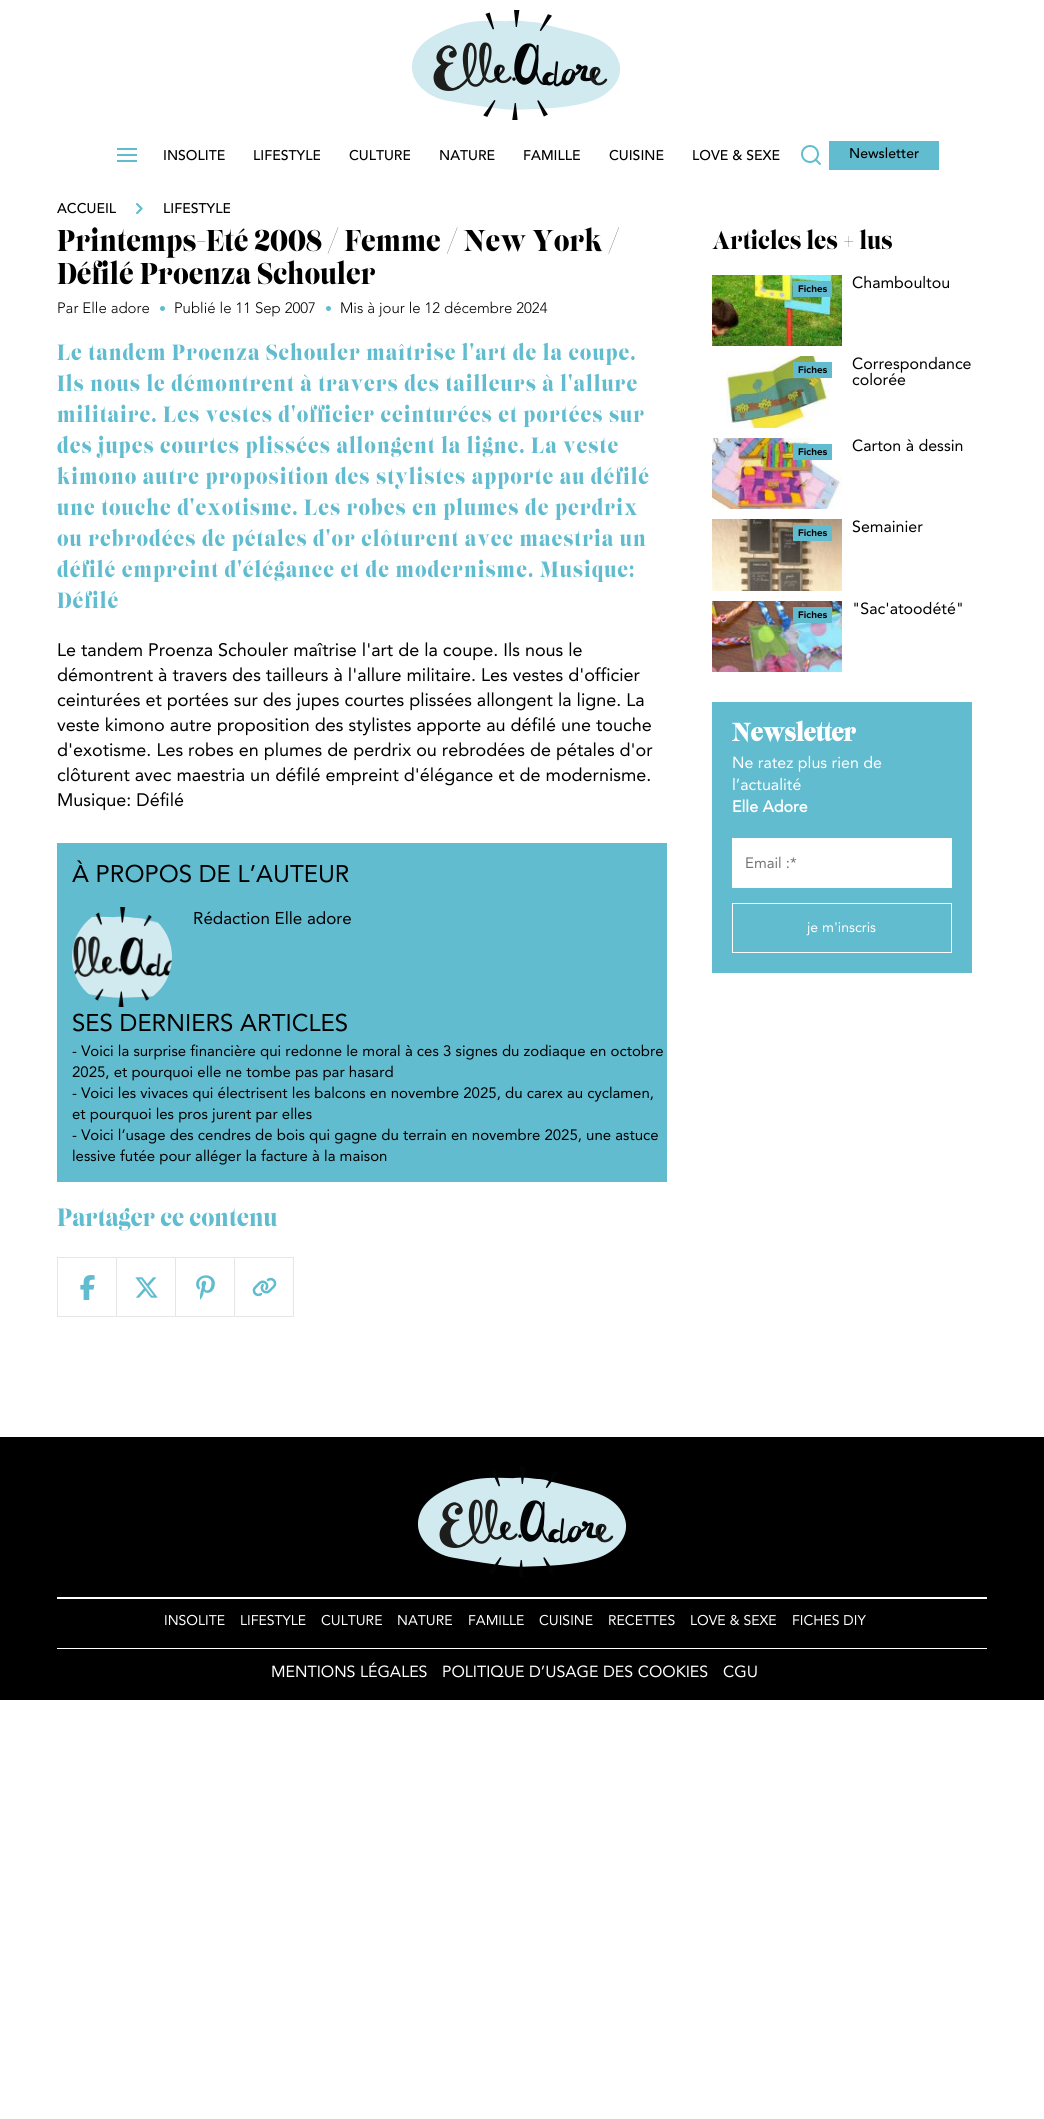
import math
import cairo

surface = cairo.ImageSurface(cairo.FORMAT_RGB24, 1044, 2119)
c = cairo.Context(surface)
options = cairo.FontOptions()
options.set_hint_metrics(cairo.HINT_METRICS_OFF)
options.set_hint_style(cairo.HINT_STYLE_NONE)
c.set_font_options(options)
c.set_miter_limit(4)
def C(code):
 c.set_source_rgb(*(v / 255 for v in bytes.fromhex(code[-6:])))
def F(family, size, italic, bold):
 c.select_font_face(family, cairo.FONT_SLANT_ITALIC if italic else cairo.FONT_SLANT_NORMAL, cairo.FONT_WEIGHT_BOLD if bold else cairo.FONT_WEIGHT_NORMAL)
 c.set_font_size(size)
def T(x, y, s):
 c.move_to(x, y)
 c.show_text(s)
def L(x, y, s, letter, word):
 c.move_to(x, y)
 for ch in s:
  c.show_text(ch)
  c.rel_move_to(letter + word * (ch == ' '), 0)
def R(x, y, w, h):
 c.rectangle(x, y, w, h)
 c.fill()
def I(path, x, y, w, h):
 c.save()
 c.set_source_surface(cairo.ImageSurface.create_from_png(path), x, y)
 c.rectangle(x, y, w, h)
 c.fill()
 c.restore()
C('ffffff')
c.paint()
I('1.png',412,10,208,110)
C('61bccf')
R(117,148,20,2)
R(117,154,20,2)
R(117,160,20,2)
F('Avenir Medium',14,0,0)
C('000000')
T(163,160,'INSOLITE')
T(253,160,'LIFESTYLE')
T(349,160,'CULTURE')
T(439,160,'NATURE')
T(523,160,'FAMILLE')
T(609,160,'CUISINE')
T(692,160,'LOVE & SEXE')
c.new_path()
c.arc(810,154,8,0,2 * math.pi)
C('61bccf')
c.stroke()
c.new_path()
c.move_to(820,164)
c.line_to(815.5,159.5)
c.set_line_cap(cairo.LINE_CAP_ROUND)
c.set_line_join(cairo.LINE_JOIN_ROUND)
c.stroke()
R(829,141,110,29)
C('000000')
T(849,158,'Newsletter')
T(57,213,'ACCUEIL')
I('2.png',136,203,7,11)
T(163,213,'LIFESTYLE')
F('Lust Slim',30,0,0)
T(57,251,'Printemps-Eté 2008 / Femme / New York /')
T(57,284,'Défilé Proenza Schouler')
F('Avenir Light',15,0,0)
T(57,313,'Par Elle adore')
C('61bccf')
c.new_path()
c.arc(162.5,308.5,2.5,0,2 * math.pi)
c.fill()
C('000000')
T(174,313,'Publié le 11 Sep 2007')
C('61bccf')
c.new_path()
c.arc(328.5,308.5,2.5,0,2 * math.pi)
c.fill()
C('000000')
T(340,313,'Mis à jour le 12 décembre 2024')
F('Lust Slim',22,0,0)
C('61bccf')
L(57,360,'Le tandem Proenza Schouler maîtrise l\'art de la coupe.',1,0)
L(57,391,'Ils nous le démontrent à travers des tailleurs à l\'allure',1,0)
L(57,422,'militaire. Les vestes d\'officier ceinturées et portées sur',1,0)
L(57,453,'des jupes courtes plissées allongent la ligne. La veste',1,0)
L(57,484,'kimono autre proposition des stylistes apporte au défilé',1,0)
L(57,515,'une touche d\'exotisme. Les robes en plumes de perdrix',1,0)
L(57,546,'ou rebrodées de pétales d\'or clôturent avec maestria un',1,0)
L(57,577,'défilé empreint d\'élégance et de modernisme. Musique:',1,0)
L(57,608,'Défilé',1,0)
F('Avenir',18,0,0)
C('000000')
T(57,656,'Le tandem Proenza Schouler maîtrise l\'art de la coupe. Ils nous le')
T(57,681,'démontrent à travers des tailleurs à l\'allure militaire. Les vestes d\'officier')
T(57,706,'ceinturées et portées sur des jupes courtes plissées allongent la ligne. La')
T(57,731,'veste kimono autre proposition des stylistes apporte au défilé une touche')
T(57,756,'d\'exotisme. Les robes en plumes de perdrix ou rebrodées de pétales d\'or')
T(57,781,'clôturent avec maestria un défilé empreint d\'élégance et de modernisme.')
T(57,806,'Musique: Défilé')
C('61bccf')
R(57,843,610,339)
F('Avenir',24,0,0)
C('000000')
T(72,882,'À PROPOS DE L’AUTEUR')
I('3.png',72,907,100,100)
F('Avenir',17,0,0)
T(193,924,'Rédaction Elle adore')
F('Avenir',24,0,0)
T(72,1031,'SES DERNIERS ARTICLES')
F('Avenir',15,0,0)
T(72,1056,'- Voici la surprise financière qui redonne le moral à ces 3 signes du zodiaque en octobre')
T(72,1077,'2025, et pourquoi elle ne tombe pas par hasard')
T(72,1098,'- Voici les vivaces qui électrisent les balcons en novembre 2025, du carex au cyclamen,')
T(72,1119,'et pourquoi les pros jurent par elles')
T(72,1140,'- Voici l’usage des cendres de bois qui gagne du terrain en novembre 2025, une astuce')
T(72,1161,'lessive futée pour alléger la facture à la maison')
F('Lust Slim',25,0,0)
C('61bccf')
T(57,1226,'Partager ce contenu')
C('e6e6e6')
R(57,1257,178,1)
R(57,1316,178,1)
R(57,1257,1,60)
I('4.png',80,1275,15,25)
R(116,1257,1,60)
I('5.png',135,1277,23,21)
R(175,1257,1,60)
I('6.png',196,1275,19,25)
c.rectangle(234.5,1257.5,59,59)
c.set_line_width(1)
c.set_line_cap(cairo.LINE_CAP_BUTT)
c.set_line_join(cairo.LINE_JOIN_MITER)
c.stroke()
I('7.png',252,1277,25,20)
C('000000')
T(712,249,'Articles les + lus')
I('8.png',712,275,130,71)
C('61bccf')
R(793,281,39,16)
I('9.png',798,285,29,8)
F('Avenir',16,0,0)
C('000000')
T(852,288,'Chamboultou')
I('10.png',726,356,104,72)
C('61bccf')
R(793,362,39,16)
I('9.png',798,366,29,8)
C('000000')
T(852,369,'Correspondance')
T(852,385,'colorée')
I('11.png',712,438,130,71)
C('61bccf')
R(793,444,39,16)
I('9.png',798,448,29,8)
C('000000')
T(852,451,'Carton à dessin')
I('12.png',712,519,130,72)
C('61bccf')
R(793,525,39,16)
I('9.png',798,529,29,8)
C('000000')
T(852,532,'Semainier')
I('13.png',712,601,130,71)
C('61bccf')
R(793,607,39,16)
I('9.png',798,611,29,8)
C('000000')
T(852,614,'"Sac\'atoodété"')
C('61bccf')
R(712,702,260,271)
F('Lust Slim',25,0,1)
C('ffffff')
T(732,741,'Newsletter')
F('Avenir',16,0,0)
T(732,768,'Ne ratez plus rien de')
T(732,790,'l’actualité')
F('Avenir',16,0,1)
T(732,812,'Elle Adore')
R(732,838,220,50)
F('Avenir',15,0,0)
C('757575')
T(745,868,'Email :*')
c.rectangle(732.5,903.5,219,49)
C('ffffff')
c.stroke()
F('Avenir',14,0,0)
T(807,932,'je m\'inscris')
C('000000')
R(0,1437,1044,263)
C('ffffff')
R(57,1597,930,2)
I('14.png',418,1467,208,110)
T(164,1625,'INSOLITE')
T(240,1625,'LIFESTYLE')
T(321,1625,'CULTURE')
T(397,1625,'NATURE')
T(468,1625,'FAMILLE')
T(539,1625,'CUISINE')
T(608,1625,'RECETTES')
T(690,1625,'LOVE & SEXE')
T(792,1625,'FICHES DIY')
R(57,1648,930,1)
F('Avenir',16,0,0)
T(271,1677,'MENTIONS LÉGALES')
T(442,1677,'POLITIQUE D’USAGE DES COOKIES')
T(723,1677,'CGU')
surface.write_to_png('o.png')
